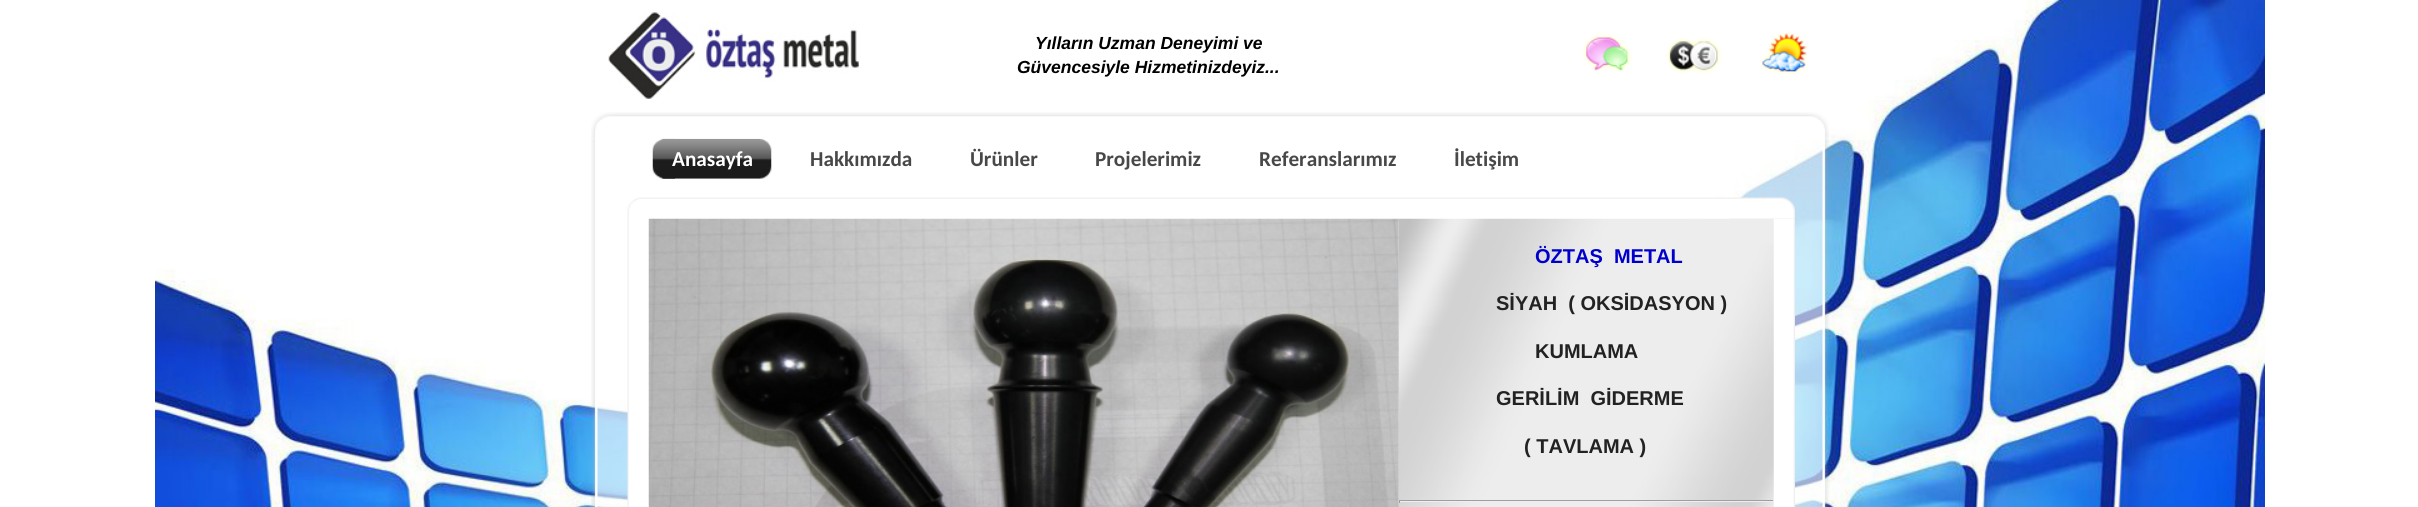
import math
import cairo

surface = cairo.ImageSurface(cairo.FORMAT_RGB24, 2418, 507)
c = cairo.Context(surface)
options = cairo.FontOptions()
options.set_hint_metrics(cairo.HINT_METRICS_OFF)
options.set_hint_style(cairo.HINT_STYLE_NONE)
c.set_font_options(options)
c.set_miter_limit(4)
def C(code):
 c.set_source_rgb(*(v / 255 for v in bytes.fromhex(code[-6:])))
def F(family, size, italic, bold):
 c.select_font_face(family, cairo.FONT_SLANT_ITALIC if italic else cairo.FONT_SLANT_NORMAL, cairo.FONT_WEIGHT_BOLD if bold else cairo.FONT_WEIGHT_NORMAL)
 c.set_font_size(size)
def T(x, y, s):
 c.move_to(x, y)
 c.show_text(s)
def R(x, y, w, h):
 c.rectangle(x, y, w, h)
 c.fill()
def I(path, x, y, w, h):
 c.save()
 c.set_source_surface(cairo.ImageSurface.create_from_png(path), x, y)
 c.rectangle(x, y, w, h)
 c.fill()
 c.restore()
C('ffffff')
c.paint()
I('1.png',155,0,2110,507)
I('2.png',608,12,251,87)
F('Liberation Sans',17.5,1,1)
C('000000')
T(1035,49,'Yılların Uzman Deneyimi ve')
T(1017,73,'Güvencesiyle Hizmetinizdeyiz...')
I('3.png',1582,33,50,40)
I('4.png',1666,37,56,37)
I('5.png',1759,31,49,44)
I('6.png',591,112,1238,27)
I('7.png',591,139,1239,368)
I('8.png',652,138,23,41)
I('9.png',662,138,110,41)
F('Carlito',21.25,0,1)
C('ffffff')
T(672,166,'Anasayfa')
C('484848')
T(810,166,'Hakkımızda')
T(970,166,'Ürünler')
T(1095,166,'Projelerimiz')
T(1259,166,'Referanslarımız')
T(1454,166,'İletişim')
I('10.png',627,197,1168,22)
I('11.png',627,218,1168,289)
I('13.png',1398,218,376,289)
I('12.png',648,218,751,289)
F('Liberation Sans',20,0,1)
C('0000cd')
T(1535,263,'ÖZTAŞ  METAL')
C('222222')
T(1496,310,'SİYAH  ( OKSİDASYON )')
T(1535,358,'KUMLAMA')
T(1496,405,'GERİLİM  GİDERME')
T(1524,453,'( TAVLAMA )')
C('9f9f9f')
R(1399,500,375,1)
C('eeeeee')
R(1773,500,1,3)
R(1399,501,375,1)
C('9f9f9f')
R(1399,500,1,3)
surface.write_to_png('o.png')
